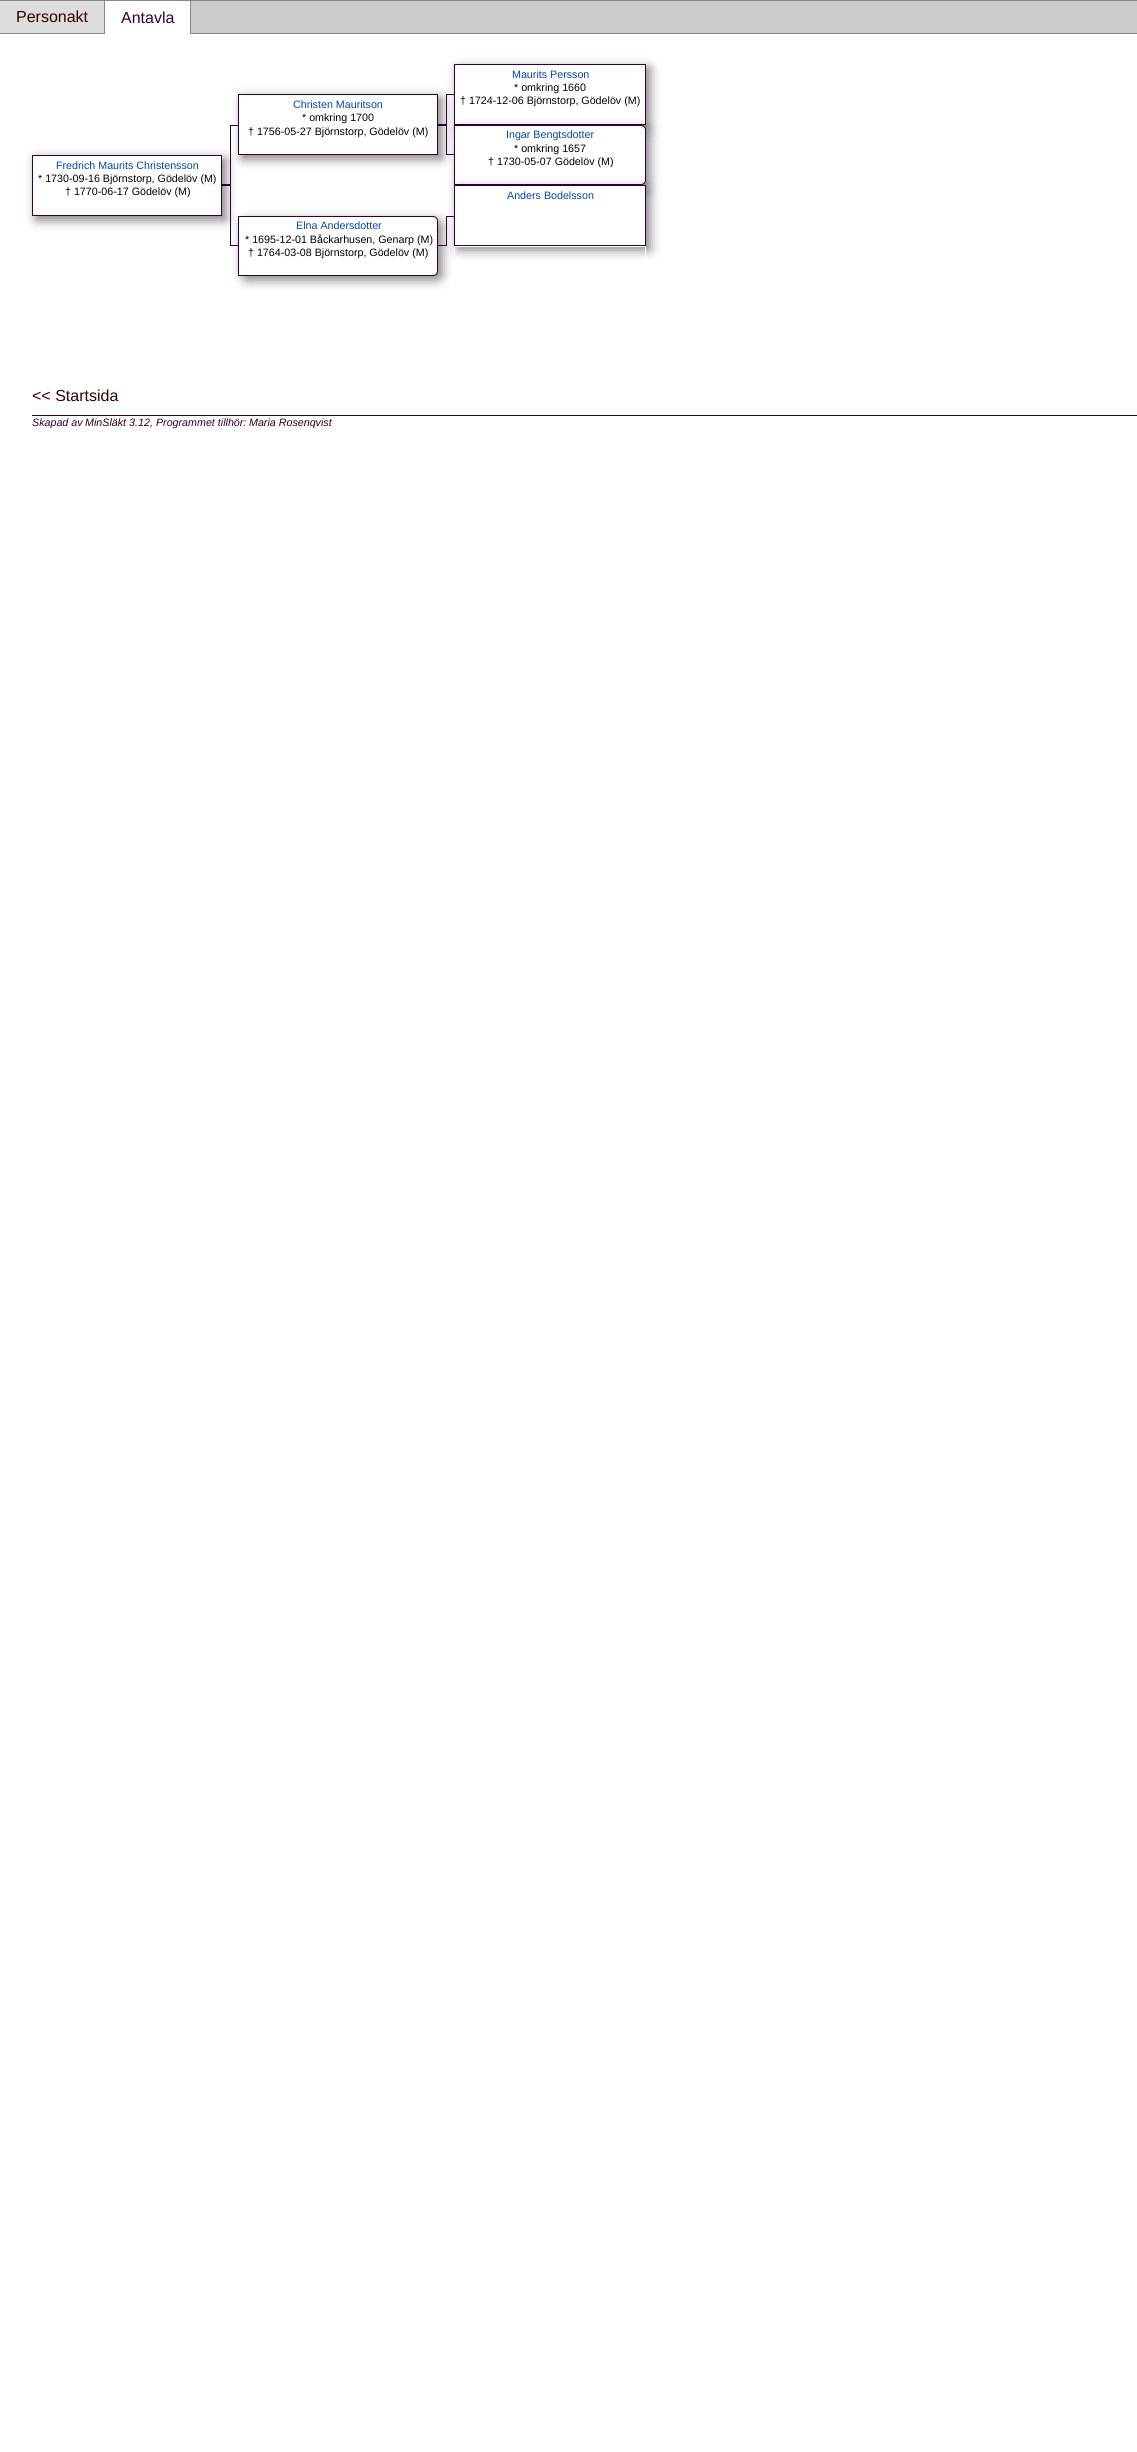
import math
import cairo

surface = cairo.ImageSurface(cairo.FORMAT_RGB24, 1137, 2452)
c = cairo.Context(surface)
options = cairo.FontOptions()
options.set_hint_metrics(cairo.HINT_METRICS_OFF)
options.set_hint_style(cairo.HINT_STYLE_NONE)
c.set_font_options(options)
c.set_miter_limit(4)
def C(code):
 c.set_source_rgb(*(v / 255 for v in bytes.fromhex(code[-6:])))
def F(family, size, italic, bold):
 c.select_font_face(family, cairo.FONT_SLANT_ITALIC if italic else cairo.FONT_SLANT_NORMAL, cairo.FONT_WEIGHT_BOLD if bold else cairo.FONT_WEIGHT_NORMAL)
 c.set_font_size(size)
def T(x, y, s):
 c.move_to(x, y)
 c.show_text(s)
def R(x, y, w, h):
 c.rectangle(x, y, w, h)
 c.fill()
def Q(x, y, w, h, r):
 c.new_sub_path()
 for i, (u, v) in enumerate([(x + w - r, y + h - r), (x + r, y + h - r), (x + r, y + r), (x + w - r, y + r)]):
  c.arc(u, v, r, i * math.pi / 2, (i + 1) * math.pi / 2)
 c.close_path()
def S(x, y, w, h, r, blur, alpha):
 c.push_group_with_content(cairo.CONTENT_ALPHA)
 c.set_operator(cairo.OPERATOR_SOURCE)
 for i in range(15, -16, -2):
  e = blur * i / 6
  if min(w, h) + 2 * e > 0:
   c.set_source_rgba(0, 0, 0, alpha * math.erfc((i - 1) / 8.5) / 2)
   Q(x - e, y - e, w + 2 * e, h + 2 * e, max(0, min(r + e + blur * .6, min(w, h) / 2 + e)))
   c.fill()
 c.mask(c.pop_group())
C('ffffff')
c.paint()
C('dddddd')
R(0,1,104,32)
C('888888')
R(0,0,1137,1)
R(104,0,1,34)
R(0,33,105,1)
F('Liberation Sans',16,0,0)
C('330000')
T(16,22,'Personakt')
C('888888')
R(190,0,1,34)
C('330033')
T(121,23,'Antavla')
C('cccccc')
R(191,1,946,32)
C('888888')
R(191,33,946,1)
c.save()
c.set_fill_rule(cairo.FILL_RULE_EVEN_ODD)
c.new_path()
c.move_to(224,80)
c.line_to(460,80)
c.line_to(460,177)
c.line_to(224,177)
c.close_path()
c.move_to(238,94)
c.line_to(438,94)
c.line_to(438,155)
c.line_to(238,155)
c.close_path()
c.clip()
C('000000')
S(242,98,200,61,0,5.5,.5)
c.restore()
C('330033')
R(438,124,8,1)
c.save()
c.set_fill_rule(cairo.FILL_RULE_EVEN_ODD)
c.new_path()
c.move_to(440,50)
c.line_to(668,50)
c.line_to(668,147)
c.line_to(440,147)
c.close_path()
c.move_to(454,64)
c.line_to(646,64)
c.line_to(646,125)
c.line_to(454,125)
c.close_path()
c.clip()
C('000000')
S(458,68,192,61,0,5.5,.5)
c.restore()
c.rectangle(454.5,64.5,191,60)
c.set_line_width(1)
c.stroke()
F('Liberation Sans',10.7,0,0)
C('0645ad')
T(512,78,'Maurits Persson')
C('000000')
T(514,91,'* omkring 1660')
T(460,104,'† 1724-12-06 Björnstorp, Gödelöv (M)')
c.save()
c.set_fill_rule(cairo.FILL_RULE_EVEN_ODD)
c.new_path()
c.move_to(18,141)
c.line_to(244,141)
c.line_to(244,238)
c.line_to(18,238)
c.close_path()
c.move_to(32,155)
c.line_to(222,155)
c.line_to(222,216)
c.line_to(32,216)
c.close_path()
c.clip()
C('000000')
S(36,159,190,61,0,5.5,.5)
c.restore()
c.rectangle(238.5,94.5,199,60)
C('330033')
c.stroke()
C('0645ad')
T(293,108,'Christen Mauritson')
C('000000')
T(302,121,'* omkring 1700')
T(248,135,'† 1756-05-27 Björnstorp, Gödelöv (M)')
c.rectangle(32.5,155.5,189,60)
C('330033')
c.stroke()
C('0645ad')
T(56,169,'Fredrich Maurits Christensson')
C('000000')
T(38,182,'* 1730-09-16 Björnstorp, Gödelöv (M)')
T(65,195,'† 1770-06-17 Gödelöv (M)')
C('330033')
R(222,184,8,2)
R(446,94,8,1)
R(446,94,1,31)
R(230,125,8,1)
R(230,125,1,60)
R(438,125,8,1)
R(446,154,8,1)
R(446,125,1,30)
C('000000')
S(458,129,192,60,5,5.5,.5)
C('ffffff')
c.new_path()
c.move_to(454.5,125.5)
c.line_to(641,125.5)
c.curve_to(643.5,125.5,645.5,127.5,645.5,130)
c.line_to(645.5,180)
c.curve_to(645.5,182.5,643.5,184.5,641,184.5)
c.line_to(454.5,184.5)
c.close_path()
c.fill_preserve()
C('330033')
c.stroke()
C('0645ad')
T(506,138,'Ingar Bengtsdotter')
C('000000')
T(514,152,'* omkring 1657')
T(488,165,'† 1730-05-07 Gödelöv (M)')
C('330033')
R(230,245,8,1)
R(230,185,1,61)
C('000000')
S(242,220,200,60,5,5.5,.5)
C('330033')
R(438,245,8,1)
C('000000')
S(458,189,192,61,0,5.5,.5)
C('ffffff')
c.rectangle(454.5,185.5,191,60)
c.fill_preserve()
C('330033')
c.stroke()
C('0645ad')
T(507,199,'Anders Bodelsson')
C('ffffff')
c.new_path()
c.move_to(238.5,216.5)
c.line_to(433,216.5)
c.curve_to(435.5,216.5,437.5,218.5,437.5,221)
c.line_to(437.5,271)
c.curve_to(437.5,273.5,435.5,275.5,433,275.5)
c.line_to(238.5,275.5)
c.close_path()
c.fill_preserve()
C('330033')
c.stroke()
C('0645ad')
T(296,229,'Elna Andersdotter')
C('000000')
T(245,243,'* 1695-12-01 Båckarhusen, Genarp (M)')
T(248,256,'† 1764-03-08 Björnstorp, Gödelöv (M)')
C('330033')
R(446,216,8,1)
R(446,216,1,30)
c.rectangle(454.5,246.5,191,60)
C('ffffff')
c.stroke()
F('Liberation Sans',16,0,0)
C('330000')
T(32,401,'<< Startsida')
C('330033')
R(32,415,1105,1)
F('Liberation Sans',10.7,1,0)
T(32,426,'Skapad av')
C('330000')
T(85,426,'MinSläkt 3.12')
C('330033')
T(150,426,', Programmet tillhör:')
C('330000')
T(249,426,'Maria Rosenqvist')
surface.write_to_png('o.png')
